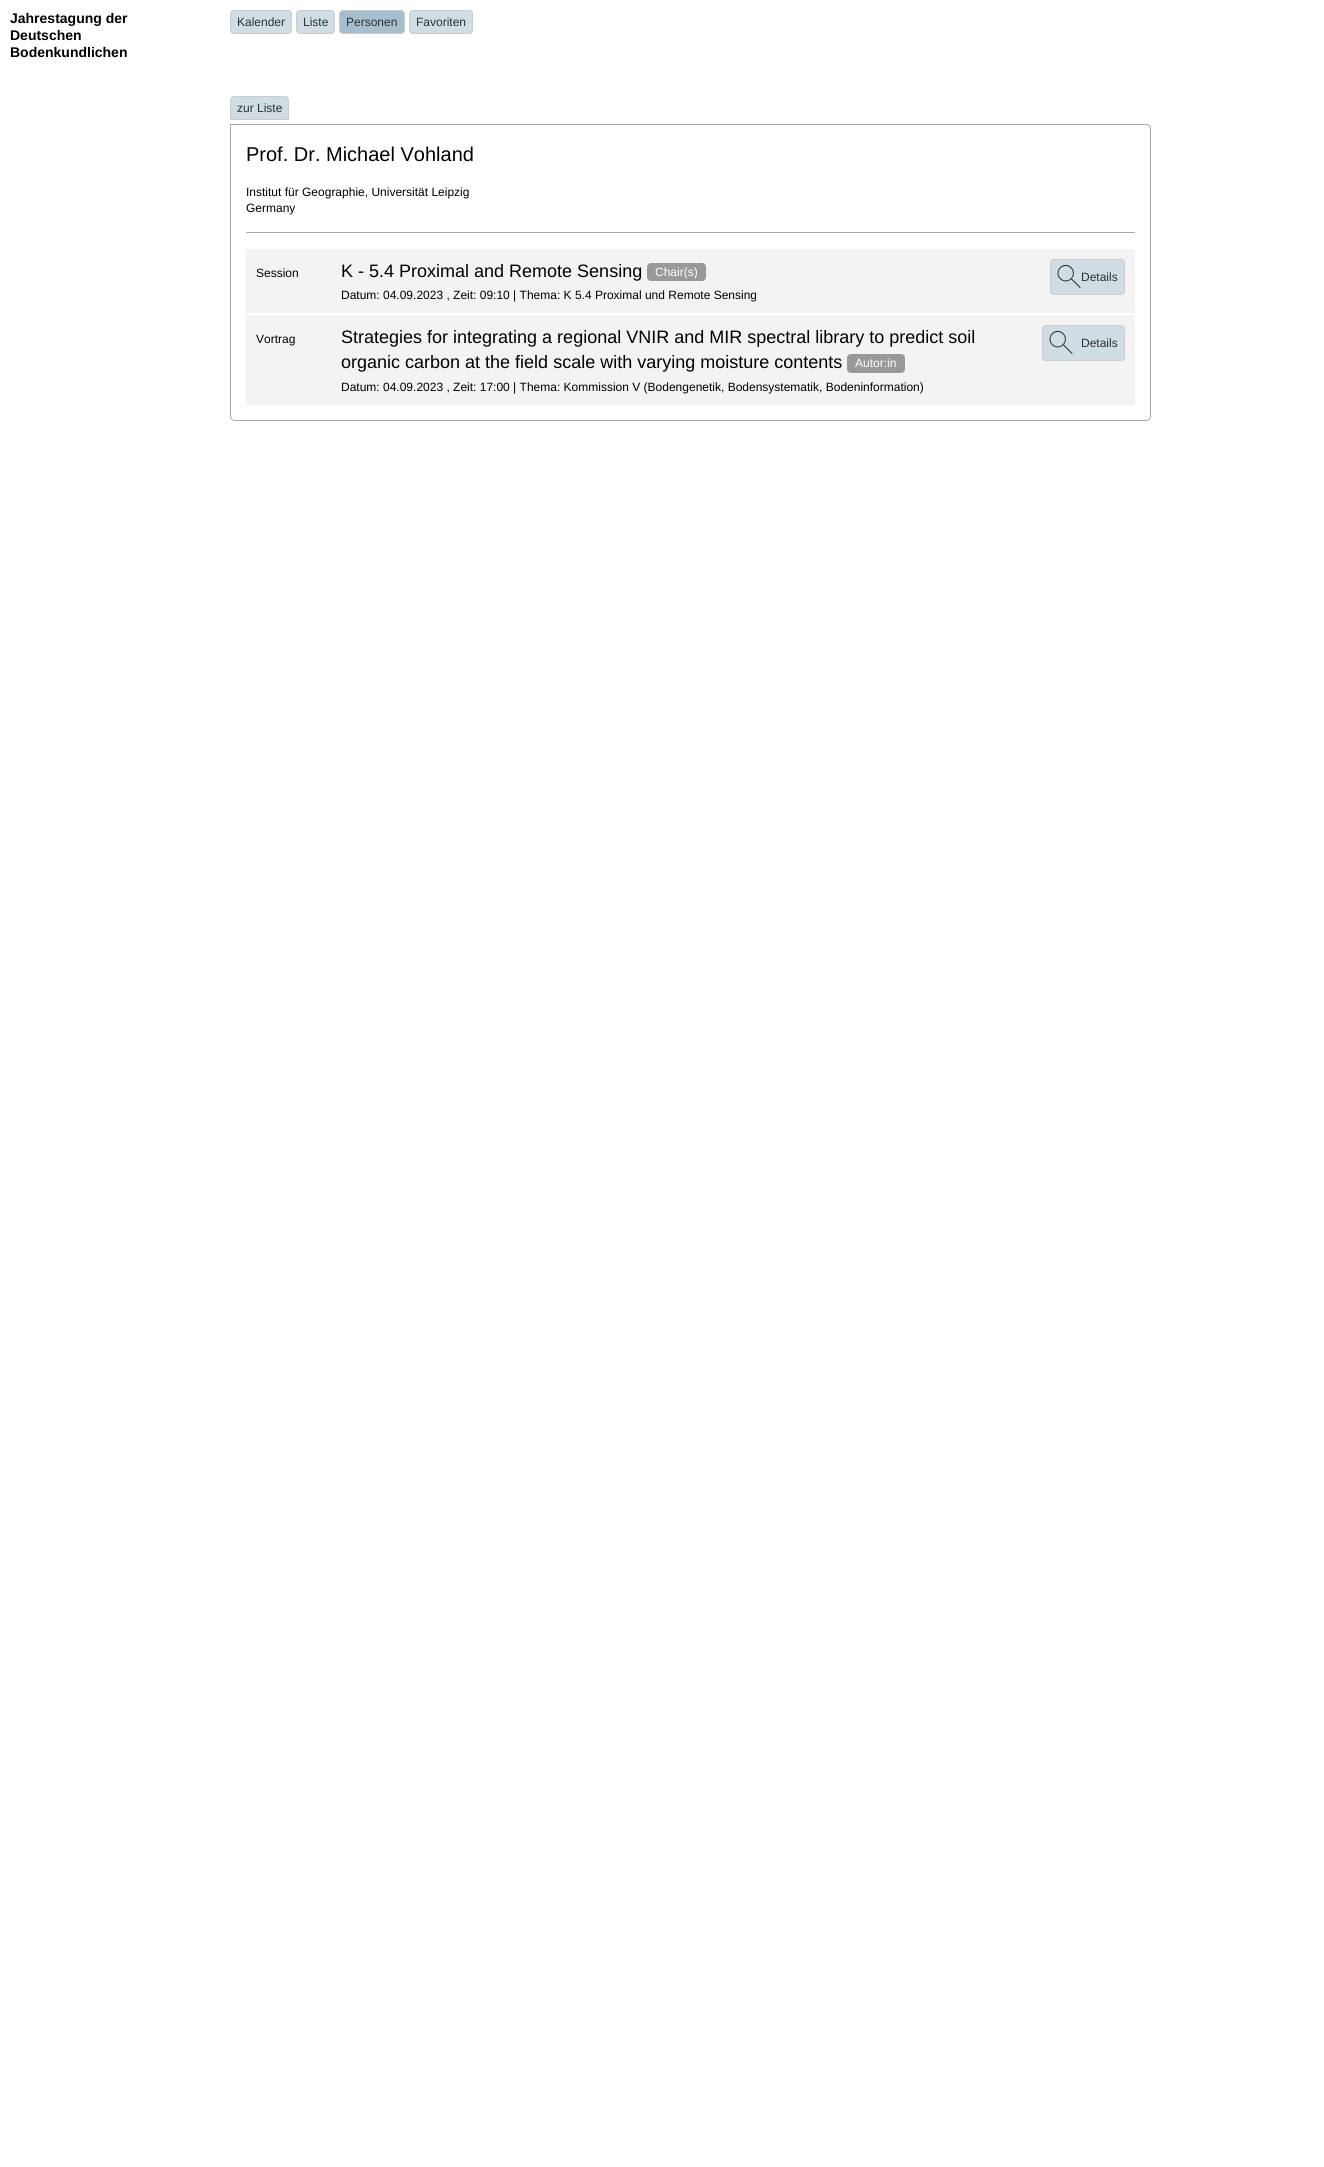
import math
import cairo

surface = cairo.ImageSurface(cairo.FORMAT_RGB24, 1324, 2167)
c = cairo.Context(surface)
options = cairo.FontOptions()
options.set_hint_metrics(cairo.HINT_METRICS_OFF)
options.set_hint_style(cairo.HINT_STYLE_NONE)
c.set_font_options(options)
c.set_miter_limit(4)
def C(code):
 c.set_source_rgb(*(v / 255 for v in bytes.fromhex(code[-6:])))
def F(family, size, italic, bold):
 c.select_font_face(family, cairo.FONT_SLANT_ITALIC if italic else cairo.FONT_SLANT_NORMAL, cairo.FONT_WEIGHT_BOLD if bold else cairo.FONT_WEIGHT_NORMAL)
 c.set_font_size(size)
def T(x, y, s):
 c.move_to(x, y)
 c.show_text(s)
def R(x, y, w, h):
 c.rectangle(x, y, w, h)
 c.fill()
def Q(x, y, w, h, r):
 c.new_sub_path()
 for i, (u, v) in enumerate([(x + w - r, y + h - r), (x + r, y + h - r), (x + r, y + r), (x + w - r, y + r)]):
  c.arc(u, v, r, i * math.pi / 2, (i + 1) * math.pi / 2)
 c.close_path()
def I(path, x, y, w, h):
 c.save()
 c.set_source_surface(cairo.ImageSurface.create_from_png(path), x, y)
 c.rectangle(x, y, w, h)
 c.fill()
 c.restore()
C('ffffff')
c.paint()
F('Liberation Sans',14,0,1)
C('000000')
T(10,23,'Jahrestagung der')
T(10,40,'Deutschen')
T(10,57,'Bodenkundlichen')
C('d0dde5')
Q(230.5,10.5,61,23,3.5)
c.fill_preserve()
C('cccccc')
c.set_line_width(1)
c.stroke()
F('Liberation Sans',12,0,0)
C('2e3031')
T(237,26,'Kalender')
C('d0dde5')
Q(296.5,10.5,38,23,3.5)
c.fill_preserve()
C('cccccc')
c.stroke()
C('2e3031')
T(303,26,'Liste')
C('a6bece')
Q(339.5,10.5,65,23,3.5)
c.fill_preserve()
C('cccccc')
c.stroke()
C('2e3031')
T(346,26,'Personen')
C('d0dde5')
Q(409.5,10.5,63,23,3.5)
c.fill_preserve()
C('cccccc')
c.stroke()
C('2e3031')
T(416,26,'Favoriten')
c.new_path()
c.move_to(230.5,124.5)
c.line_to(1146,124.5)
c.curve_to(1148.5,124.5,1150.5,126.5,1150.5,129)
c.line_to(1150.5,416)
c.curve_to(1150.5,418.5,1148.5,420.5,1146,420.5)
c.line_to(235,420.5)
c.curve_to(232.5,420.5,230.5,418.5,230.5,416)
c.close_path()
C('aaaaaa')
c.stroke()
C('d0dde5')
c.new_path()
c.move_to(234,96.5)
c.line_to(285,96.5)
c.curve_to(287,96.5,288.5,98,288.5,100)
c.line_to(288.5,119.5)
c.line_to(230.5,119.5)
c.line_to(230.5,100)
c.curve_to(230.5,98,232,96.5,234,96.5)
c.close_path()
c.fill_preserve()
C('cccccc')
c.stroke()
C('2e3031')
T(237,112,'zur Liste')
F('Liberation Sans',20,0,0)
C('000000')
T(246,161,'Prof. Dr. Michael Vohland')
F('Liberation Sans',12,0,0)
T(246,196,'Institut für Geographie, Universität Leipzig')
T(246,212,'Germany')
C('aaaaaa')
R(246,232,889,1)
C('f3f3f3')
R(246,249,889,64)
C('000000')
T(256,277,'Session')
F('Liberation Sans',18,0,0)
T(341,277,'K - 5.4 Proximal and Remote Sensing')
C('999999')
Q(647,263,59,18,4)
c.fill()
F('Liberation Sans',12,0,0)
C('ffffff')
T(655,276,'Chair(s)')
C('d0dde5')
Q(1050.5,259.5,74,35,3.5)
c.fill_preserve()
C('cccccc')
c.stroke()
I('1.png',1057,264,24,24)
C('2e3031')
T(1081,281,'Details')
C('000000')
T(341,299,'Datum: 04.09.2023 , Zeit: 09:10 | Thema: K 5.4 Proximal und Remote Sensing')
C('f3f3f3')
R(246,315,889,90)
C('000000')
T(256,343,'Vortrag')
F('Liberation Sans',18,0,0)
T(341,343,'Strategies for integrating a regional VNIR and MIR spectral library to predict soil')
T(341,368,'organic carbon at the field scale with varying moisture contents')
C('999999')
Q(847,354,58,19,4)
c.fill()
F('Liberation Sans',12,0,0)
C('ffffff')
T(855,367,'Autor:in')
C('d0dde5')
Q(1042.5,325.5,82,35,3.5)
c.fill_preserve()
C('cccccc')
c.stroke()
I('1.png',1049,330,24,24)
C('2e3031')
T(1081,347,'Details')
C('000000')
T(341,391,'Datum: 04.09.2023 , Zeit: 17:00 | Thema: Kommission V (Bodengenetik, Bodensystematik, Bodeninformation)')
surface.write_to_png('o.png')
